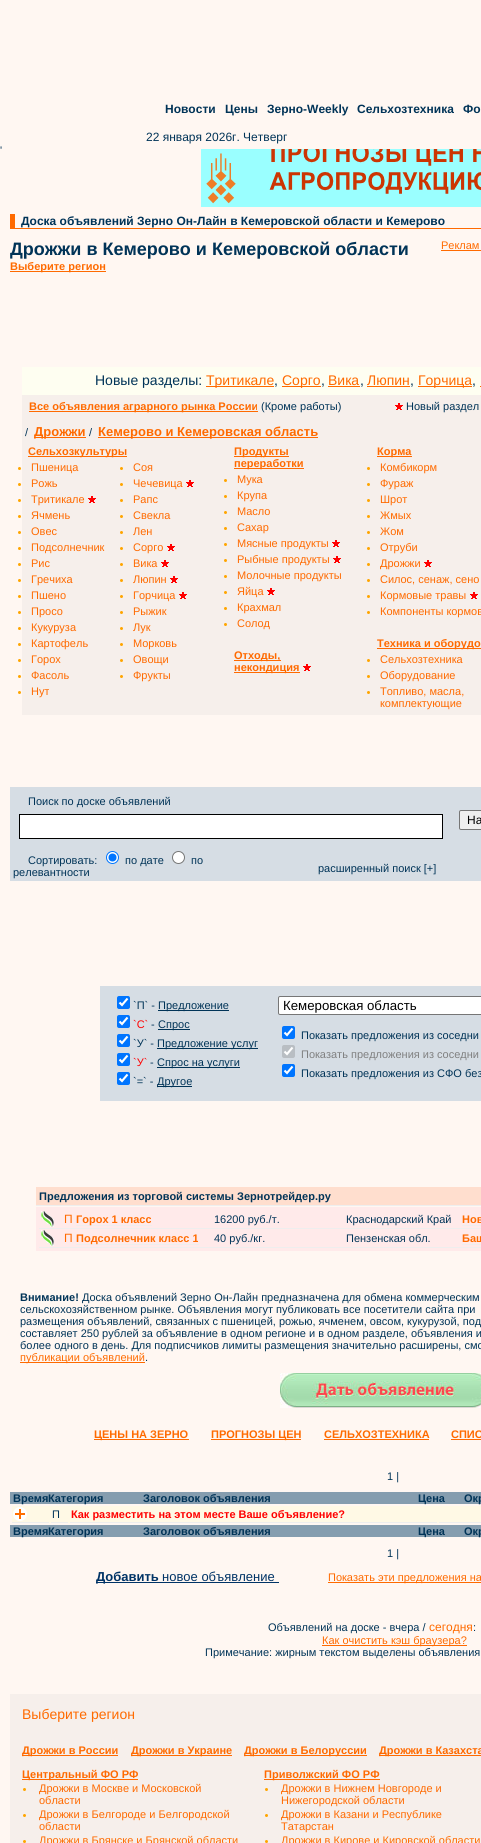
import math
import cairo

surface = cairo.ImageSurface(cairo.FORMAT_RGB24, 481, 1843)
c = cairo.Context(surface)
options = cairo.FontOptions()
options.set_hint_metrics(cairo.HINT_METRICS_OFF)
options.set_hint_style(cairo.HINT_STYLE_NONE)
c.set_font_options(options)
c.set_miter_limit(4)
def C(code):
 c.set_source_rgb(*(v / 255 for v in bytes.fromhex(code[-6:])))
def F(family, size, italic, bold):
 c.select_font_face(family, cairo.FONT_SLANT_ITALIC if italic else cairo.FONT_SLANT_NORMAL, cairo.FONT_WEIGHT_BOLD if bold else cairo.FONT_WEIGHT_NORMAL)
 c.set_font_size(size)
def T(x, y, s):
 c.move_to(x, y)
 c.show_text(s)
def R(x, y, w, h):
 c.rectangle(x, y, w, h)
 c.fill()
def Q(x, y, w, h, r):
 c.new_sub_path()
 for i, (u, v) in enumerate([(x + w - r, y + h - r), (x + r, y + h - r), (x + r, y + r), (x + w - r, y + r)]):
  c.arc(u, v, r, i * math.pi / 2, (i + 1) * math.pi / 2)
 c.close_path()
def I(path, x, y, w, h):
 c.save()
 c.set_source_surface(cairo.ImageSurface.create_from_png(path), x, y)
 c.rectangle(x, y, w, h)
 c.fill()
 c.restore()
C('fff7f2')
c.paint()
F('Liberation Sans',12,0,1)
C('003357')
T(165,113,'Новости')
T(225,113,'Цены')
T(267,113,'Зерно-Weekly')
T(357,113,'Сельхозтехника')
T(463,113,'Фо')
F('Liberation Sans',12,0,0)
T(146,141,'22 января 2026г. Четверг')
F('Liberation Sans',11,0,0)
T(0,154,'\'')
I('1.png',201,149,280,58)
C('ff6a00')
R(10,214,5,14)
F('Liberation Sans',12,0,1)
C('003357')
T(21,225,'Доска объявлений Зерно Он-Лайн в Кемеровской области и Кемерово')
C('ff6a00')
R(10,228,471,1)
F('Liberation Sans',18,0,1)
C('003357')
T(10,255,'Дрожжи в Кемерово и Кемеровской области')
C('ff6a00')
R(10,271,96,1)
F('Liberation Sans',11,0,1)
T(10,270,'Выберите регион')
F('Liberation Sans',11,0,0)
T(441,249,'Реклам')
R(441,250,40,1)
C('fefef1')
R(22,367,459,28)
F('Liberation Sans',14,0,0)
C('003357')
T(95,385,'Новые разделы:')
C('ff6a00')
R(206,386,68,1)
T(206,385,'Тритикале')
C('003357')
T(274,385,',')
C('ff6a00')
R(282,386,39,1)
T(282,385,'Сорго')
C('003357')
T(321,385,',')
C('ff6a00')
T(328,385,'Вика')
C('003357')
T(360,385,',')
C('ff6a00')
R(328,386,32,1)
T(367,385,'Люпин')
C('003357')
T(410,385,',')
C('ff6a00')
R(367,386,43,1)
R(418,386,54,1)
T(418,385,'Горчица')
C('003357')
T(472,385,',')
C('ff6a00')
R(480,386,1,1)
C('f6efeb')
R(22,395,459,320)
C('ff6a00')
R(29,411,229,1)
F('Liberation Sans',11,0,1)
T(29,410,'Все объявления аграрного рынка России')
F('Liberation Sans',11,0,0)
C('003357')
T(261,410,'(Кроме работы)')
I('2.png',395,403,8,7)
T(406,410,'Новый раздел')
T(25,436,'/')
C('ff6a00')
R(34,437,52,1)
F('Liberation Sans',13,0,1)
T(34,436,'Дрожжи')
F('Liberation Sans',11,0,0)
C('003357')
T(89,436,'/')
C('ff6a00')
R(98,437,220,1)
F('Liberation Sans',13,0,1)
T(98,436,'Кемерово и Кемеровская область')
R(28,456,99,1)
F('Liberation Sans',11,0,1)
T(28,455,'Сельхозкультуры')
C('ffa500')
c.new_path()
c.arc(19.5,468.5,1.5,0,2 * math.pi)
c.fill()
F('Liberation Sans',11,0,0)
C('ff6a00')
T(31,471,'Пшеница')
C('ffa500')
c.new_path()
c.arc(121.5,468.5,1.5,0,2 * math.pi)
c.fill()
C('ff6a00')
T(133,471,'Соя')
C('ffa500')
c.new_path()
c.arc(19.5,484.5,1.5,0,2 * math.pi)
c.fill()
C('ff6a00')
T(31,487,'Рожь')
C('ffa500')
c.new_path()
c.arc(121.5,484.5,1.5,0,2 * math.pi)
c.fill()
C('ff6a00')
T(133,487,'Чечевица')
I('2.png',186,480,8,7)
C('ffa500')
c.arc(19.5,500.5,1.5,0,2 * math.pi)
c.fill()
C('ff6a00')
T(31,503,'Тритикале')
I('2.png',88,496,8,7)
C('ffa500')
c.arc(121.5,500.5,1.5,0,2 * math.pi)
c.fill()
C('ff6a00')
T(133,503,'Рапс')
C('ffa500')
c.new_path()
c.arc(19.5,516.5,1.5,0,2 * math.pi)
c.fill()
C('ff6a00')
T(31,519,'Ячмень')
C('ffa500')
c.new_path()
c.arc(121.5,516.5,1.5,0,2 * math.pi)
c.fill()
C('ff6a00')
T(133,519,'Свекла')
C('ffa500')
c.new_path()
c.arc(19.5,532.5,1.5,0,2 * math.pi)
c.fill()
C('ff6a00')
T(31,535,'Овес')
C('ffa500')
c.new_path()
c.arc(121.5,532.5,1.5,0,2 * math.pi)
c.fill()
C('ff6a00')
T(133,535,'Лен')
C('ffa500')
c.new_path()
c.arc(19.5,548.5,1.5,0,2 * math.pi)
c.fill()
C('ff6a00')
T(31,551,'Подсолнечник')
C('ffa500')
c.new_path()
c.arc(121.5,548.5,1.5,0,2 * math.pi)
c.fill()
C('ff6a00')
T(133,551,'Сорго')
I('2.png',167,544,8,7)
C('ffa500')
c.arc(19.5,564.5,1.5,0,2 * math.pi)
c.fill()
C('ff6a00')
T(31,567,'Рис')
C('ffa500')
c.new_path()
c.arc(121.5,564.5,1.5,0,2 * math.pi)
c.fill()
C('ff6a00')
T(133,567,'Вика')
I('2.png',161,560,8,7)
C('ffa500')
c.arc(19.5,580.5,1.5,0,2 * math.pi)
c.fill()
C('ff6a00')
T(31,583,'Гречиха')
C('ffa500')
c.new_path()
c.arc(121.5,580.5,1.5,0,2 * math.pi)
c.fill()
C('ff6a00')
T(133,583,'Люпин')
I('2.png',170,576,8,7)
C('ffa500')
c.arc(19.5,596.5,1.5,0,2 * math.pi)
c.fill()
C('ff6a00')
T(31,599,'Пшено')
C('ffa500')
c.new_path()
c.arc(121.5,596.5,1.5,0,2 * math.pi)
c.fill()
C('ff6a00')
T(133,599,'Горчица')
I('2.png',179,592,8,7)
C('ffa500')
c.arc(19.5,612.5,1.5,0,2 * math.pi)
c.fill()
C('ff6a00')
T(31,615,'Просо')
C('ffa500')
c.new_path()
c.arc(121.5,612.5,1.5,0,2 * math.pi)
c.fill()
C('ff6a00')
T(133,615,'Рыжик')
C('ffa500')
c.new_path()
c.arc(19.5,628.5,1.5,0,2 * math.pi)
c.fill()
C('ff6a00')
T(31,631,'Кукуруза')
C('ffa500')
c.new_path()
c.arc(121.5,628.5,1.5,0,2 * math.pi)
c.fill()
C('ff6a00')
T(133,631,'Лук')
C('ffa500')
c.new_path()
c.arc(19.5,644.5,1.5,0,2 * math.pi)
c.fill()
C('ff6a00')
T(31,647,'Картофель')
C('ffa500')
c.new_path()
c.arc(121.5,644.5,1.5,0,2 * math.pi)
c.fill()
C('ff6a00')
T(133,647,'Морковь')
C('ffa500')
c.new_path()
c.arc(19.5,660.5,1.5,0,2 * math.pi)
c.fill()
C('ff6a00')
T(31,663,'Горох')
C('ffa500')
c.new_path()
c.arc(121.5,660.5,1.5,0,2 * math.pi)
c.fill()
C('ff6a00')
T(133,663,'Овощи')
C('ffa500')
c.new_path()
c.arc(19.5,676.5,1.5,0,2 * math.pi)
c.fill()
C('ff6a00')
T(31,679,'Фасоль')
C('ffa500')
c.new_path()
c.arc(121.5,676.5,1.5,0,2 * math.pi)
c.fill()
C('ff6a00')
T(133,679,'Фрукты')
C('ffa500')
c.new_path()
c.arc(19.5,692.5,1.5,0,2 * math.pi)
c.fill()
C('ff6a00')
T(31,695,'Нут')
R(234,456,55,1)
F('Liberation Sans',11,0,1)
T(234,455,'Продукты')
R(234,468,70,1)
T(234,467,'переработки')
C('ffa500')
c.new_path()
c.arc(225.5,480.5,1.5,0,2 * math.pi)
c.fill()
F('Liberation Sans',11,0,0)
C('ff6a00')
T(237,483,'Мука')
C('ffa500')
c.new_path()
c.arc(225.5,496.5,1.5,0,2 * math.pi)
c.fill()
C('ff6a00')
T(237,499,'Крупа')
C('ffa500')
c.new_path()
c.arc(225.5,512.5,1.5,0,2 * math.pi)
c.fill()
C('ff6a00')
T(237,515,'Масло')
C('ffa500')
c.new_path()
c.arc(225.5,528.5,1.5,0,2 * math.pi)
c.fill()
C('ff6a00')
T(237,531,'Сахар')
C('ffa500')
c.new_path()
c.arc(225.5,544.5,1.5,0,2 * math.pi)
c.fill()
C('ff6a00')
T(237,547,'Мясные продукты')
I('2.png',332,540,8,7)
C('ffa500')
c.arc(225.5,560.5,1.5,0,2 * math.pi)
c.fill()
C('ff6a00')
T(237,563,'Рыбные продукты')
I('2.png',333,556,8,7)
C('ffa500')
c.arc(225.5,576.5,1.5,0,2 * math.pi)
c.fill()
C('ff6a00')
T(237,579,'Молочные продукты')
C('ffa500')
c.new_path()
c.arc(225.5,592.5,1.5,0,2 * math.pi)
c.fill()
C('ff6a00')
T(237,595,'Яйца')
I('2.png',267,588,8,7)
C('ffa500')
c.arc(225.5,608.5,1.5,0,2 * math.pi)
c.fill()
C('ff6a00')
T(237,611,'Крахмал')
C('ffa500')
c.new_path()
c.arc(225.5,624.5,1.5,0,2 * math.pi)
c.fill()
C('ff6a00')
T(237,627,'Солод')
R(234,660,47,1)
F('Liberation Sans',11,0,1)
T(234,659,'Отходы,')
R(234,672,66,1)
T(234,671,'некондиция')
I('2.png',303,664,8,7)
R(377,456,35,1)
T(377,455,'Корма')
C('ffa500')
c.new_path()
c.arc(368.5,468.5,1.5,0,2 * math.pi)
c.fill()
F('Liberation Sans',11,0,0)
C('ff6a00')
T(380,471,'Комбикорм')
C('ffa500')
c.new_path()
c.arc(368.5,484.5,1.5,0,2 * math.pi)
c.fill()
C('ff6a00')
T(380,487,'Фураж')
C('ffa500')
c.new_path()
c.arc(368.5,500.5,1.5,0,2 * math.pi)
c.fill()
C('ff6a00')
T(380,503,'Шрот')
C('ffa500')
c.new_path()
c.arc(368.5,516.5,1.5,0,2 * math.pi)
c.fill()
C('ff6a00')
T(380,519,'Жмых')
C('ffa500')
c.new_path()
c.arc(368.5,532.5,1.5,0,2 * math.pi)
c.fill()
C('ff6a00')
T(380,535,'Жом')
C('ffa500')
c.new_path()
c.arc(368.5,548.5,1.5,0,2 * math.pi)
c.fill()
C('ff6a00')
T(380,551,'Отруби')
C('ffa500')
c.new_path()
c.arc(368.5,564.5,1.5,0,2 * math.pi)
c.fill()
C('ff6a00')
T(380,567,'Дрожжи')
I('2.png',424,560,8,7)
C('ffa500')
c.arc(368.5,580.5,1.5,0,2 * math.pi)
c.fill()
C('ff6a00')
T(380,583,'Силос, сенаж, сено')
C('ffa500')
c.new_path()
c.arc(368.5,596.5,1.5,0,2 * math.pi)
c.fill()
C('ff6a00')
T(380,599,'Кормовые травы')
I('2.png',470,592,8,7)
C('ffa500')
c.arc(368.5,612.5,1.5,0,2 * math.pi)
c.fill()
C('ff6a00')
T(380,615,'Компоненты кормов')
R(377,648,104,1)
F('Liberation Sans',11,0,1)
T(377,647,'Техника и оборудо')
C('ffa500')
c.new_path()
c.arc(368.5,660.5,1.5,0,2 * math.pi)
c.fill()
F('Liberation Sans',11,0,0)
C('ff6a00')
T(380,663,'Сельхозтехника')
C('ffa500')
c.new_path()
c.arc(368.5,676.5,1.5,0,2 * math.pi)
c.fill()
C('ff6a00')
T(380,679,'Оборудование')
C('ffa500')
c.new_path()
c.arc(368.5,692.5,1.5,0,2 * math.pi)
c.fill()
C('ff6a00')
T(380,695,'Топливо, масла,')
T(380,707,'комплектующие')
C('d6dde4')
R(10,787,471,94)
C('003357')
T(28,805,'Поиск по доске объявлений')
C('ffffff')
R(20,815,422,23)
c.rectangle(19.5,814.5,423,24)
C('000000')
c.set_line_width(1)
c.stroke()
C('efefef')
Q(459.5,810.5,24,19,1.5)
c.fill_preserve()
C('767676')
c.stroke()
F('Liberation Sans',12,0,0)
C('000000')
T(467,824,'На')
F('Liberation Sans',11,0,0)
C('003357')
T(28,864,'Сортировать:')
C('ffffff')
c.new_path()
c.arc(112.5,857.5,6,0,2 * math.pi)
c.fill_preserve()
C('0075ff')
c.stroke()
c.arc(112.5,857.5,4,0,2 * math.pi)
c.fill()
C('003357')
T(125,864,'по дате')
C('ffffff')
c.new_path()
c.arc(178.5,857.5,6,0,2 * math.pi)
c.fill_preserve()
C('767676')
c.stroke()
C('003357')
T(191,864,'по')
T(13,876,'релевантности')
T(318,872,'расширенный поиск [+]')
C('d6dde4')
R(100,986,381,115)
C('0075ff')
Q(117,996,13,13,2)
c.fill()
c.new_path()
c.move_to(119.5,1002.5)
c.line_to(122,1005)
c.line_to(127.5,998.5)
C('ffffff')
c.set_line_width(2.1)
c.stroke()
C('003357')
T(133,1009,'`П` -')
R(158,1010,71,1)
T(158,1009,'Предложение')
C('0075ff')
Q(117,1015,13,13,2)
c.fill()
c.new_path()
c.move_to(119.5,1021.5)
c.line_to(122,1024)
c.line_to(127.5,1017.5)
C('ffffff')
c.stroke()
C('ff0000')
T(133,1028,'`С`')
C('003357')
T(151,1028,'-')
R(158,1029,32,1)
T(158,1028,'Спрос')
C('0075ff')
Q(117,1034,13,13,2)
c.fill()
c.new_path()
c.move_to(119.5,1040.5)
c.line_to(122,1043)
c.line_to(127.5,1036.5)
C('ffffff')
c.stroke()
C('003357')
T(133,1047,'`У` -')
R(157,1048,101,1)
T(157,1047,'Предложение услуг')
C('0075ff')
Q(117,1053,13,13,2)
c.fill()
c.new_path()
c.move_to(119.5,1059.5)
c.line_to(122,1062)
c.line_to(127.5,1055.5)
C('ffffff')
c.stroke()
C('ff0000')
T(133,1066,'`У`')
C('003357')
T(150,1066,'-')
R(157,1067,83,1)
T(157,1066,'Спрос на услуги')
C('0075ff')
Q(117,1072,13,13,2)
c.fill()
c.new_path()
c.move_to(119.5,1078.5)
c.line_to(122,1081)
c.line_to(127.5,1074.5)
C('ffffff')
c.stroke()
C('003357')
T(133,1085,'`=` -')
R(157,1086,35,1)
T(157,1085,'Другое')
C('ffffff')
Q(278.5,996.5,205,18,1.5)
c.fill_preserve()
C('767676')
c.set_line_width(1)
c.stroke()
F('Liberation Sans',13.25,0,0)
C('000000')
T(283,1010,'Кемеровская область')
C('0075ff')
Q(282,1026,13,13,2)
c.fill()
c.new_path()
c.move_to(284.5,1032.5)
c.line_to(287,1035)
c.line_to(292.5,1028.5)
C('ffffff')
c.set_line_width(2.1)
c.stroke()
F('Liberation Sans',11,0,0)
C('003357')
T(301,1039,'Показать предложения из соседни')
C('b9bec3')
Q(282,1045,13,13,2)
c.fill()
c.new_path()
c.move_to(284.5,1051.5)
c.line_to(287,1054)
c.line_to(292.5,1047.5)
C('ffffff')
c.stroke()
C('808080')
T(301,1058,'Показать предложения из соседни')
C('0075ff')
Q(282,1064,13,13,2)
c.fill()
c.new_path()
c.move_to(284.5,1070.5)
c.line_to(287,1073)
c.line_to(292.5,1066.5)
C('ffffff')
c.stroke()
C('003357')
T(301,1077,'Показать предложения из СФО без')
C('ffdece')
R(36,1187,445,18)
C('eeeeee')
R(36,1205,445,1)
F('Liberation Sans',11,0,1)
C('003357')
T(39,1200,'Предложения из торговой системы Зернотрейдер.ру')
C('ffeaea')
R(36,1207,445,44)
C('eeeeee')
R(39,1228,442,1)
I('3.png',41,1211,13,16)
F('Liberation Sans',12,0,0)
C('ff6a00')
T(64,1223,'П')
C('eeeeee')
R(76,1225,76,1)
F('Liberation Sans',11,0,1)
C('ff6a00')
T(76,1223,'Горох 1 класс')
F('Liberation Sans',11,0,0)
C('003357')
T(214,1223,'16200 руб./т.')
T(346,1223,'Краснодарский Край')
F('Liberation Sans',11,0,1)
C('ff6a00')
T(462,1223,'Нов')
C('eeeeee')
R(462,1225,19,1)
R(39,1247,442,1)
I('3.png',41,1230,13,16)
F('Liberation Sans',12,0,0)
C('ff6a00')
T(64,1242,'П')
C('eeeeee')
R(76,1244,123,1)
F('Liberation Sans',11,0,1)
C('ff6a00')
T(76,1242,'Подсолнечник класс 1')
F('Liberation Sans',11,0,0)
C('003357')
T(214,1242,'40 руб./кг.')
T(346,1242,'Пензенская обл.')
F('Liberation Sans',11,0,1)
C('ff6a00')
T(462,1242,'Баш')
C('eeeeee')
R(462,1244,19,1)
C('003357')
T(20,1301,'Внимание!')
F('Liberation Sans',11,0,0)
T(82,1301,'Доска объявлений Зерно Он-Лайн предназначена для обмена коммерческим')
T(20,1313,'сельскохозяйственном рынке. Объявления могут публиковать все посетители сайта при')
T(20,1325,'размещения объявлений, связанных с пшеницей, рожью, ячменем, овсом, кукурузой, под')
T(20,1337,'составляет 250 рублей за объявление в одном регионе и в одном разделе, объявления и')
T(20,1349,'более одного в день. Для подписчиков лимиты размещения значительно расширены, смо')
C('ff6a00')
R(20,1362,125,1)
T(20,1361,'публикации объявлений')
C('003357')
T(145,1361,'.')
I('4.png',280,1373,201,35)
C('ff6a00')
R(94,1439,95,1)
F('Liberation Sans',11,0,1)
T(94,1438,'ЦЕНЫ НА ЗЕРНО')
R(211,1439,90,1)
T(211,1438,'ПРОГНОЗЫ ЦЕН')
T(324,1438,'СЕЛЬХОЗТЕХНИКА')
R(324,1439,105,1)
T(451,1438,'СПИС')
R(451,1439,30,1)
F('Liberation Sans',11,0,0)
C('003357')
T(387,1480,'1 |')
C('859daf')
R(10,1492,471,12)
F('Liberation Sans',11,0,1)
C('003357')
T(13,1502,'Время')
T(48,1502,'Категория')
T(143,1502,'Заголовок объявления')
T(418,1502,'Цена')
T(464,1502,'Окр')
C('fff9e5')
R(12,1506,469,17)
C('eeeeee')
R(12,1522,37,1)
I('5.png',13,1507,14,14)
R(51,1522,17,1)
F('Liberation Sans',11,0,0)
C('003357')
T(52,1518,'П')
C('eeeeee')
R(70,1522,367,1)
F('Liberation Sans',11,0,1)
C('ff0000')
T(71,1518,'Как разместить на этом месте Ваше объявление?')
C('eeeeee')
R(439,1522,42,1)
C('859daf')
R(10,1525,471,12)
C('003357')
T(13,1535,'Время')
T(48,1535,'Категория')
T(143,1535,'Заголовок объявления')
T(418,1535,'Цена')
T(464,1535,'Окр')
F('Liberation Sans',11,0,0)
T(387,1557,'1 |')
C('003366')
R(96,1582,183,1)
F('Liberation Sans',13,0,1)
T(96,1581,'Добавить')
F('Liberation Sans',13,0,0)
T(162,1581,'новое объявление')
C('ff6a00')
R(328,1582,153,1)
F('Liberation Sans',11,0,0)
T(328,1581,'Показать эти предложения на')
C('003357')
T(268,1631,'Объявлений на доске - вчера /')
F('Liberation Sans',12,0,0)
C('ff6a00')
T(429,1631,'сегодня')
F('Liberation Sans',11,0,0)
C('003357')
T(473,1631,':')
C('ff6a00')
R(322,1645,145,1)
T(322,1644,'Как очистить кэш браузера?')
C('003357')
T(205,1656,'Примечание: жирным текстом выделены объявления')
C('f6efeb')
R(10,1694,471,149)
F('Liberation Sans',14,0,0)
C('ff6a00')
T(22,1719,'Выберите регион')
R(22,1755,96,1)
F('Liberation Sans',11,0,1)
T(22,1754,'Дрожжи в России')
R(131,1755,101,1)
T(131,1754,'Дрожжи в Украине')
R(244,1755,123,1)
T(244,1754,'Дрожжи в Белоруссии')
R(379,1755,102,1)
T(379,1754,'Дрожжи в Казахста')
R(22,1779,116,1)
T(22,1778,'Центральный ФО РФ')
C('ffa500')
c.new_path()
c.arc(24.5,1789.5,1.5,0,2 * math.pi)
c.fill()
F('Liberation Sans',11,0,0)
C('ff6a00')
T(39,1792,'Дрожжи в Москве и Московской')
T(39,1804,'области')
C('ffa500')
c.new_path()
c.arc(24.5,1815.5,1.5,0,2 * math.pi)
c.fill()
C('ff6a00')
T(39,1818,'Дрожжи в Белгороде и Белгородской')
T(39,1830,'области')
C('ffa500')
c.new_path()
c.arc(24.5,1841.5,1.5,0,2 * math.pi)
c.fill()
C('ff6a00')
T(39,1844,'Дрожжи в Брянске и Брянской области')
R(264,1779,116,1)
F('Liberation Sans',11,0,1)
T(264,1778,'Приволжский ФО РФ')
C('ffa500')
c.new_path()
c.arc(266.5,1789.5,1.5,0,2 * math.pi)
c.fill()
F('Liberation Sans',11,0,0)
C('ff6a00')
T(281,1792,'Дрожжи в Нижнем Новгороде и')
T(281,1804,'Нижегородской области')
C('ffa500')
c.new_path()
c.arc(266.5,1815.5,1.5,0,2 * math.pi)
c.fill()
C('ff6a00')
T(281,1818,'Дрожжи в Казани и Республике')
T(281,1830,'Татарстан')
C('ffa500')
c.new_path()
c.arc(266.5,1841.5,1.5,0,2 * math.pi)
c.fill()
C('ff6a00')
T(281,1844,'Дрожжи в Кирове и Кировской области')
surface.write_to_png('o.png')
